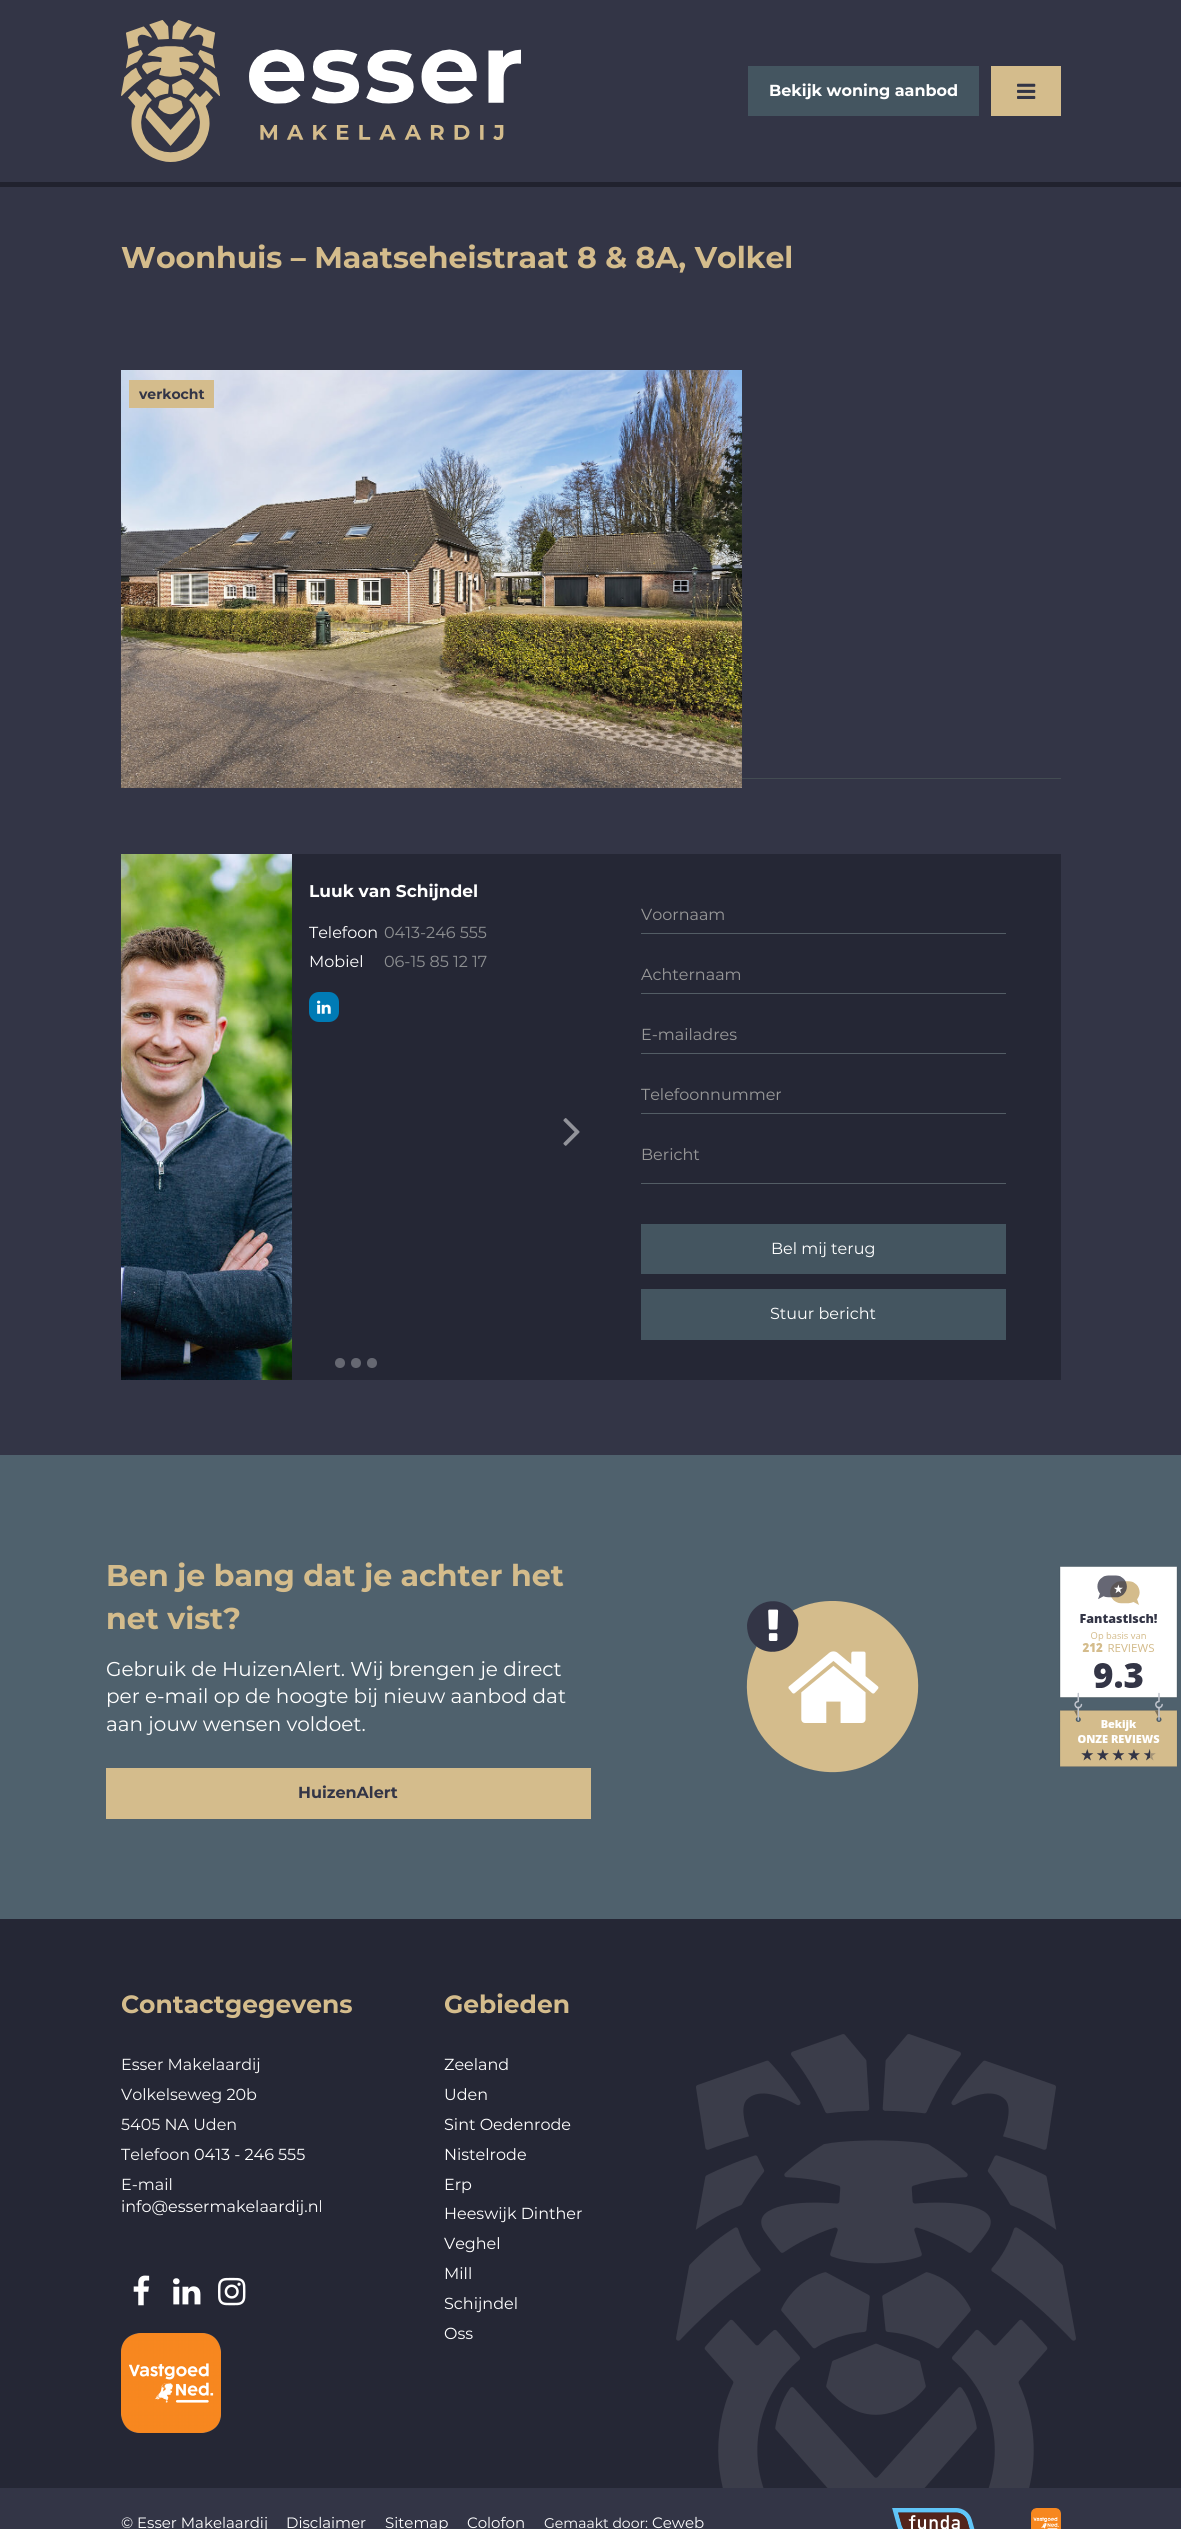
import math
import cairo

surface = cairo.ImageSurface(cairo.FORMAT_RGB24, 1181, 2529)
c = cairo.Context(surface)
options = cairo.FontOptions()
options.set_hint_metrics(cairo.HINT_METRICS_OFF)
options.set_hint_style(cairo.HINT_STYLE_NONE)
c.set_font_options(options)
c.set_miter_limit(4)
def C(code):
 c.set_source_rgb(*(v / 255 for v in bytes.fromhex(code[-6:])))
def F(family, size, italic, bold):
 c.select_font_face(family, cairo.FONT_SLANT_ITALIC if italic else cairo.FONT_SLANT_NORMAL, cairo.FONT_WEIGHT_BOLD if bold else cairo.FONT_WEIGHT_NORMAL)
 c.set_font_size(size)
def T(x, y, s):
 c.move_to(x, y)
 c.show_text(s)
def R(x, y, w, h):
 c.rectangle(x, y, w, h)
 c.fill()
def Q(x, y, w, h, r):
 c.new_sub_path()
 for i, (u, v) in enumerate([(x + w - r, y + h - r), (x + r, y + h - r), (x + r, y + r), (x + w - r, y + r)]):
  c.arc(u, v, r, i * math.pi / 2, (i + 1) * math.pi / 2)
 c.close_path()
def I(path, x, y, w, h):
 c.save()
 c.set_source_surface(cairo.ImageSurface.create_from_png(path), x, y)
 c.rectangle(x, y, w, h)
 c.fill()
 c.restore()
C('333546')
c.paint()
C('21222e')
R(0,182,1181,5)
I('1.png',121,20,400,142)
C('445560')
R(748,66,231,50)
F('Montserrat',16,0,1)
C('ffffff')
T(769,96,'Bekijk woning aanbod')
C('d4bc8c')
R(991,66,70,50)
I('2.png',1017,83,19,16)
F('Montserrat',30,0,1)
T(121,268,'Woonhuis – Maatseheistraat 8 & 8A, Volkel')
C('434c52')
R(742,778,319,1)
I('3.png',121,370,621,418)
C('d4bc8c')
R(129,380,85,28)
F('Montserrat',14,0,1)
C('333546')
T(139,399,'verkocht')
C('252735')
R(292,854,769,526)
I('4.png',121,854,171,526)
F('Montserrat',17,0,1)
C('ffffff')
T(309,897,'Luuk van Schijndel')
F('Montserrat',16,0,0)
T(309,938,'Telefoon')
C('8e9092')
T(384,938,'0413-246 555')
C('ffffff')
T(309,967,'Mobiel')
C('8e9092')
T(384,967,'06-15 85 12 17')
C('007bb5')
Q(309,992,30,30,10)
c.fill()
I('5.png',317,1000,14,14)
I('6.png',132,1118,17,28)
I('7.png',563,1118,17,28)
C('666872')
c.arc(340,1363,5,0,2 * math.pi)
c.fill()
c.arc(356,1363,5,0,2 * math.pi)
c.fill()
c.arc(372,1363,5,0,2 * math.pi)
c.fill()
C('999999')
T(641,920,'Voornaam')
C('535d65')
R(641,933,365,1)
C('999999')
T(641,980,'Achternaam')
C('535d65')
R(641,993,365,1)
C('999999')
T(641,1040,'E-mailadres')
C('535d65')
R(641,1053,365,1)
C('999999')
T(641,1100,'Telefoonnummer')
C('535d65')
R(641,1113,365,1)
C('999999')
T(641,1160,'Bericht')
C('535d65')
R(641,1183,365,1)
C('445560')
R(641,1224,365,50)
C('ffffff')
T(771,1254,'Bel mij terug')
C('445560')
R(641,1289,365,51)
C('ffffff')
T(770,1319,'Stuur bericht')
C('252735')
R(0,1919,1181,569)
C('4f616d')
R(0,1455,1181,464)
F('Montserrat',30,0,1)
C('d4bc8c')
T(106,1586,'Ben je bang dat je achter het')
T(106,1629,'net vist?')
F('Montserrat',20,0,0)
C('ffffff')
T(106,1676,'Gebruik de HuizenAlert. Wij brengen je direct')
T(106,1703,'per e-mail op de hoogte bij nieuw aanbod dat')
T(106,1731,'aan jouw wensen voldoet.')
C('d4bc8c')
R(106,1768,485,51)
F('Montserrat',16,0,1)
C('333546')
T(298,1798,'HuizenAlert')
C('d4bc8c')
c.new_path()
c.move_to(907,1644)
c.curve_to(916,1658,919,1675,918,1692)
c.curve_to(917,1707,912,1722,904,1734)
c.curve_to(869,1787,790,1784,758,1730)
c.curve_to(750,1715,746,1698,747,1681)
c.curve_to(748,1666,753,1651,761,1639)
c.curve_to(797,1586,875,1589,907,1644)
c.close_path()
c.fill()
I('9.png',788,1651,91,72)
C('333546')
c.new_path()
c.move_to(795,1614)
c.curve_to(798,1618,799,1623,798,1628)
c.curve_to(797,1653,763,1661,750,1639)
c.curve_to(748,1635,747,1630,747,1625)
c.curve_to(749,1600,782,1592,795,1614)
c.close_path()
c.fill()
I('8.png',768,1609,11,32)
I('10.png',676,2034,400,454)
F('Montserrat',25,0,1)
C('d4bc8c')
T(121,2013,'Contactgegevens')
F('Montserrat',16,0,0)
C('f9f9f9')
T(121,2070,'Esser Makelaardij')
T(121,2100,'Volkelseweg 20b')
T(121,2130,'5405 NA Uden')
T(121,2160,'Telefoon')
C('ffffff')
T(194,2160,'0413 - 246 555')
C('f9f9f9')
T(121,2190,'E-mail')
C('ffffff')
T(121,2212,'info@essermakelaardij.nl')
I('11.png',133,2275,17,31)
I('12.png',173,2278,28,27)
I('13.png',218,2277,28,29)
I('14.png',121,2333,100,100)
F('Montserrat',25,0,1)
C('d4bc8c')
T(444,2013,'Gebieden')
F('Montserrat',16,0,0)
C('ffffff')
T(444,2070,'Zeeland')
T(444,2100,'Uden')
T(444,2130,'Sint Oedenrode')
T(444,2160,'Nistelrode')
T(444,2190,'Erp')
T(444,2219,'Heeswijk Dinther')
T(444,2249,'Veghel')
T(444,2279,'Mill')
T(444,2309,'Schijndel')
T(444,2339,'Oss')
F('Montserrat',15,0,0)
T(121,2528,'© Esser Makelaardij')
T(286,2528,'Disclaimer')
T(385,2528,'Sitemap')
T(467,2528,'Colofon')
F('Montserrat',14,0,0)
T(544,2528,'Gemaakt door:')
F('Montserrat',15,0,0)
T(652,2528,'Ceweb')
I('15.png',892,2508,83,21)
I('16.png',1031,2508,30,21)
I('17.png',1059,1566,119,201)
surface.write_to_png('o.png')
